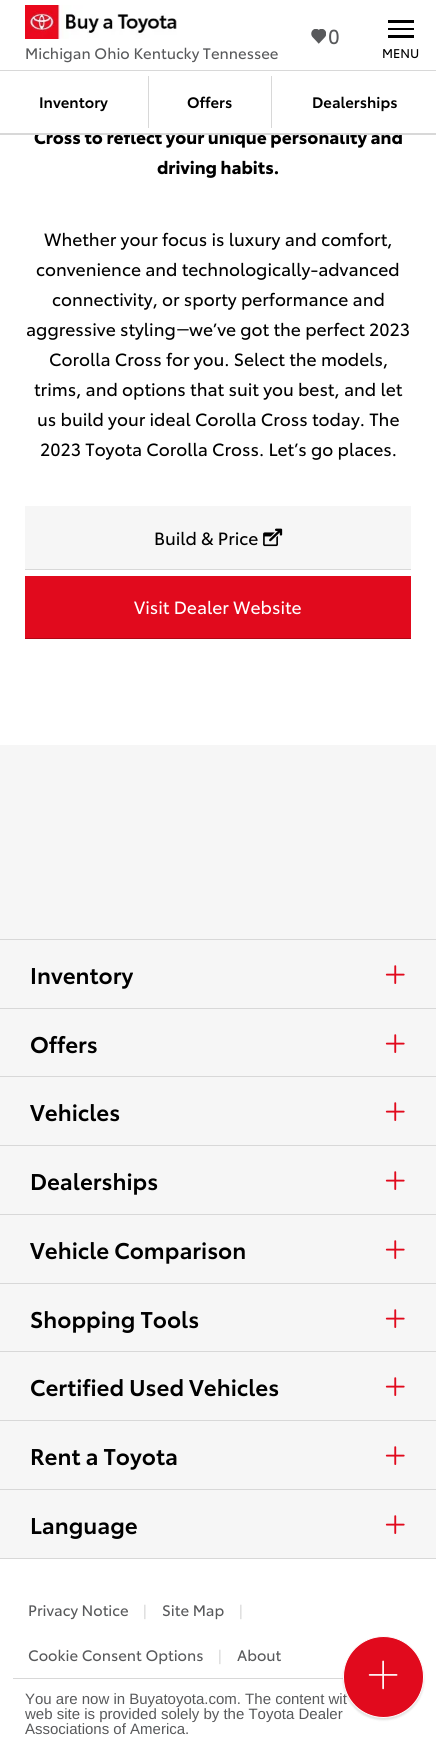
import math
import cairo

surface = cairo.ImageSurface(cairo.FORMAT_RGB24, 436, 1754)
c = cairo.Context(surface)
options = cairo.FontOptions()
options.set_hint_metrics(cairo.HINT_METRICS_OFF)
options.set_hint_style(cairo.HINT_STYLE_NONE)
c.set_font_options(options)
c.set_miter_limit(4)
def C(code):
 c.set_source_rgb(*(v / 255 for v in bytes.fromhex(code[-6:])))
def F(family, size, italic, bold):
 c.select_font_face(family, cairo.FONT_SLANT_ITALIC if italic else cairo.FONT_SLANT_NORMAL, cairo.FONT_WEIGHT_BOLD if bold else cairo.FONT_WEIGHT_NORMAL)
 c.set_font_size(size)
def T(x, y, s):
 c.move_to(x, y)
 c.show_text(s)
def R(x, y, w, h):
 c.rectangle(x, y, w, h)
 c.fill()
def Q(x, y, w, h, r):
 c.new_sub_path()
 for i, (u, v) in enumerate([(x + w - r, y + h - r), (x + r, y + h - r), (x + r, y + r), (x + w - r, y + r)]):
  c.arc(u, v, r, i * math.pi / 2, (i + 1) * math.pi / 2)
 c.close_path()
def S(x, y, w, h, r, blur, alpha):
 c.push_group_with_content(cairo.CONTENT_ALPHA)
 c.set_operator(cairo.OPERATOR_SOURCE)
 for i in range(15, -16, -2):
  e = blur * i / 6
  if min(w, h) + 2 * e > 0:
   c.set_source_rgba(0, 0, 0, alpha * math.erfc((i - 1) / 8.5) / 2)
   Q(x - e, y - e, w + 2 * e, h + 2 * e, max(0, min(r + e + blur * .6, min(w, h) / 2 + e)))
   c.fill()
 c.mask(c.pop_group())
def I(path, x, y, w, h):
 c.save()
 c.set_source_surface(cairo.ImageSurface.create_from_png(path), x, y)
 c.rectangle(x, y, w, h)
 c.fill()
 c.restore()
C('f6f6f6')
c.paint()
C('ffffff')
R(0,135,436,610)
F('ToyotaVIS',17.5,0,1)
C('000000')
T(34,144,'Cross to reflect your unique personality and')
C('ffffff')
R(0,0,436,133)
C('d8d8d8')
R(0,133,436,2)
R(0,70,436,1)
I('1.png',311,29,15,15)
F('ToyotaVIS',20,0,0)
C('58595b')
T(328,44,'0')
I('2.png',25,5,152,34)
F('ToyotaVIS',15,0,0)
T(25,59,'Michigan Ohio Kentucky Tennessee')
C('000000')
R(388,20,26,3)
R(388,28,26,2)
R(388,35,26,3)
F('ToyotaVIS',12.5,0,0)
T(382,58,'MENU')
F('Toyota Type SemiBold',15,0,0)
T(39,108,'Inventory')
C('d8d8d8')
R(148,76,1,52)
C('000000')
T(187,108,'Offers')
C('d8d8d8')
R(271,76,1,52)
C('000000')
T(312,108,'Dealerships')
F('ToyotaVIS',17.5,0,1)
T(157,174,'driving habits.')
F('ToyotaVIS',17.5,0,0)
T(44,246,'Whether your focus is luxury and comfort,')
T(36,276,'convenience and technologically-advanced')
T(52,306,'connectivity, or sporty performance and')
T(26,336,'aggressive styling')
F('Roboto',17.5,0,0)
T(176,336,'—')
F('ToyotaVIS',17.5,0,0)
T(189,336,'we’ve got the perfect 2023')
T(49,366,'Corolla Cross for you. Select the models,')
T(34,396,'trims, and options that suit you best, and let')
T(37,426,'us build your ideal Corolla Cross today. The')
T(40,456,'2023 Toyota Corolla Cross. Let’s go places.')
C('f6f6f6')
R(25,506,386,63)
C('d8d8d8')
R(25,569,386,1)
C('000000')
T(154,545,'Build & Price')
F('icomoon',17.5,0,0)
T(263,545,'/')
C('e10a1d')
R(25,576,386,62)
C('b00716')
R(25,638,386,1)
F('ToyotaVIS',17.5,0,0)
C('ffffff')
T(134,614,'Visit Dealer Website')
C('d8d8d8')
R(0,939,436,1)
R(0,1008,436,1)
F('Toyota Type SemiBold',22.5,0,0)
C('000000')
T(30,984,'Inventory')
F('icomoon',22.5,0,0)
C('e10a1d')
T(384,984,'#')
C('d8d8d8')
R(0,1076,436,1)
F('Toyota Type SemiBold',22.5,0,0)
C('000000')
T(30,1053,'Offers')
F('icomoon',22.5,0,0)
C('e10a1d')
T(384,1053,'#')
C('d8d8d8')
R(0,1145,436,1)
F('Toyota Type SemiBold',22.5,0,0)
C('000000')
T(30,1121,'Vehicles')
F('icomoon',22.5,0,0)
C('e10a1d')
T(384,1121,'#')
C('d8d8d8')
R(0,1214,436,1)
F('Toyota Type SemiBold',22.5,0,0)
C('000000')
T(30,1190,'Dealerships')
F('icomoon',22.5,0,0)
C('e10a1d')
T(384,1190,'#')
C('d8d8d8')
R(0,1283,436,1)
F('Toyota Type SemiBold',22.5,0,0)
C('000000')
T(30,1259,'Vehicle Comparison')
F('icomoon',22.5,0,0)
C('e10a1d')
T(384,1259,'#')
C('d8d8d8')
R(0,1351,436,1)
F('Toyota Type SemiBold',22.5,0,0)
C('000000')
T(30,1328,'Shopping Tools')
F('icomoon',22.5,0,0)
C('e10a1d')
T(384,1328,'#')
C('d8d8d8')
R(0,1420,436,1)
F('Toyota Type SemiBold',22.5,0,0)
C('000000')
T(30,1396,'Certified Used Vehicles')
F('icomoon',22.5,0,0)
C('e10a1d')
T(384,1396,'#')
C('d8d8d8')
R(0,1489,436,1)
F('Toyota Type SemiBold',22.5,0,0)
C('000000')
T(30,1465,'Rent a Toyota')
F('icomoon',22.5,0,0)
C('e10a1d')
T(384,1465,'#')
C('d8d8d8')
R(0,1558,436,1)
F('Toyota Type SemiBold',22.5,0,0)
C('000000')
T(30,1534,'Language')
F('icomoon',22.5,0,0)
C('e10a1d')
T(384,1534,'#')
C('ffffff')
R(0,1559,436,195)
C('d8d8d8')
R(13,1678,331,1)
F('ToyotaVIS',15,0,0)
C('58595b')
T(28,1616,'Privacy Notice')
C('d8d8d8')
T(143,1616,'|')
C('58595b')
T(162,1616,'Site Map')
C('d8d8d8')
T(239,1616,'|')
C('58595b')
T(28,1661,'Cookie Consent Options')
C('d8d8d8')
T(218,1661,'|')
C('58595b')
T(237,1661,'About')
F('Liberation Sans',15,0,0)
T(25,1704,'You are now in Buyatoyota.com. The content wit')
T(25,1719,'web site is provided solely by the Toyota Dealer')
T(25,1734,'Associations of America.')
C('323232')
S(343,1639,81,81,40.5,1,.15)
C('e10a1d')
Q(343.5,1636.5,80,81,40)
c.fill_preserve()
C('ffffff')
c.set_line_width(1)
c.stroke()
I('3.png',368,1660,30,30)
surface.write_to_png('o.png')
